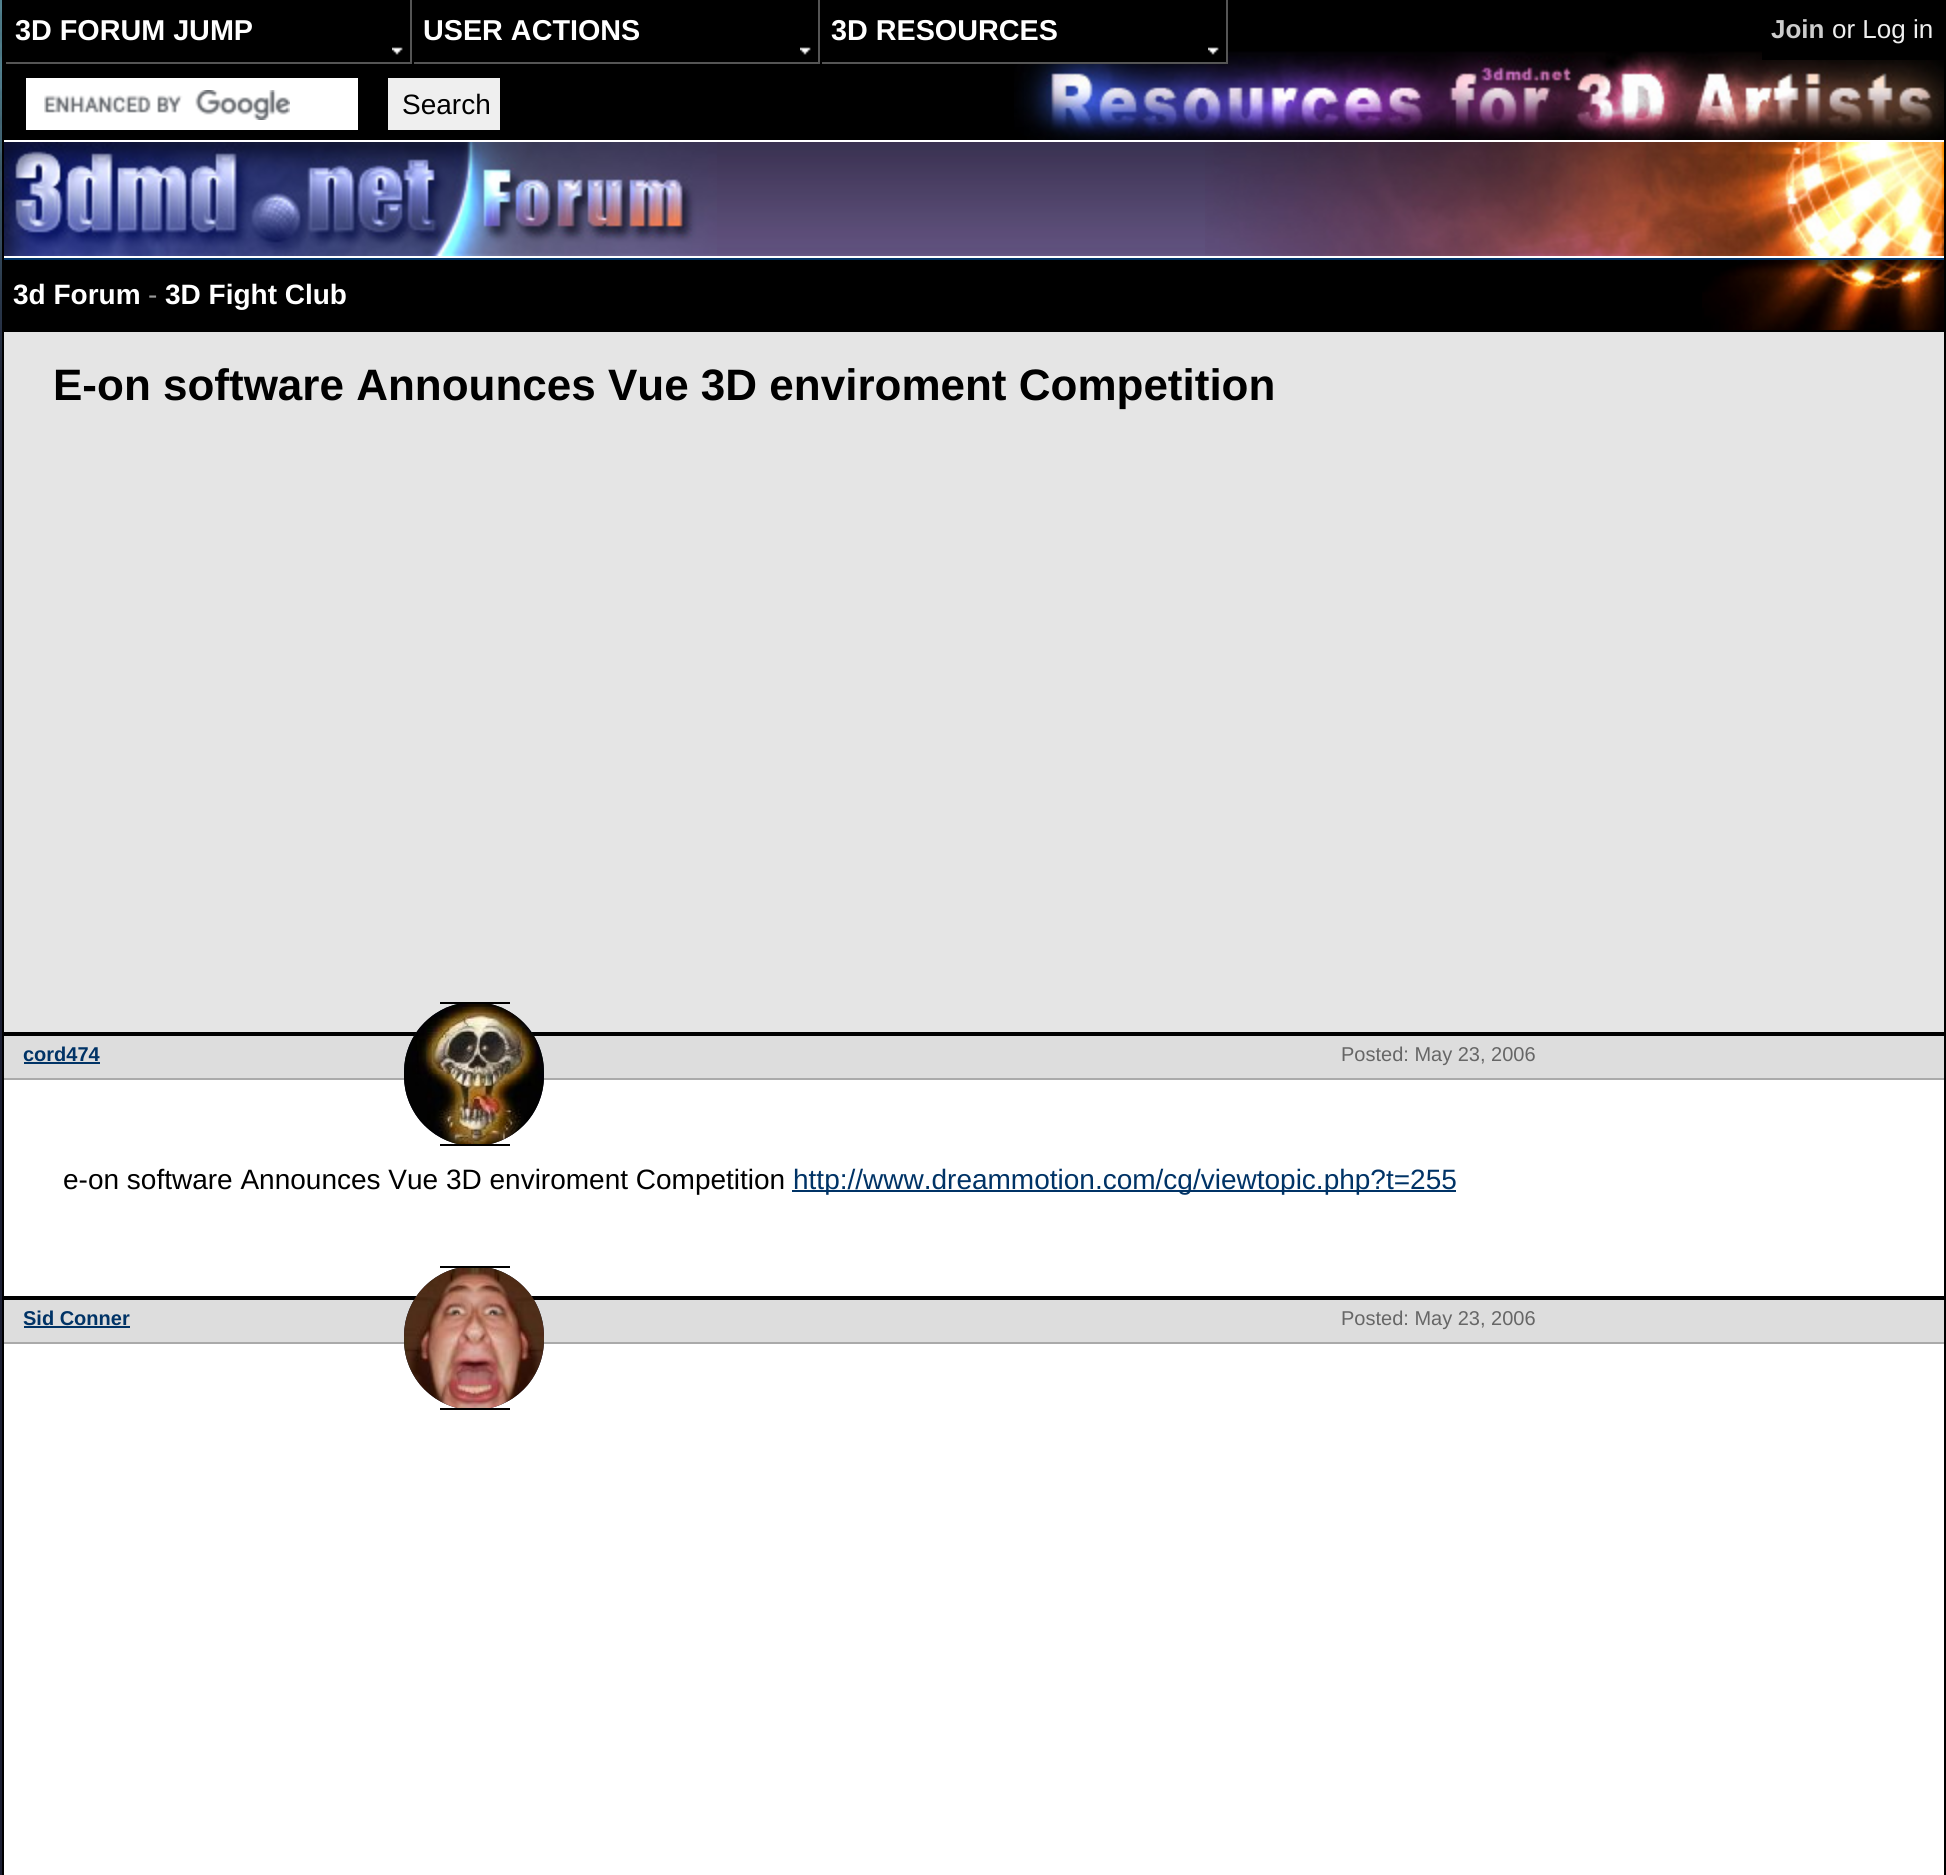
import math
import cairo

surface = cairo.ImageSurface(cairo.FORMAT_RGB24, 1946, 1875)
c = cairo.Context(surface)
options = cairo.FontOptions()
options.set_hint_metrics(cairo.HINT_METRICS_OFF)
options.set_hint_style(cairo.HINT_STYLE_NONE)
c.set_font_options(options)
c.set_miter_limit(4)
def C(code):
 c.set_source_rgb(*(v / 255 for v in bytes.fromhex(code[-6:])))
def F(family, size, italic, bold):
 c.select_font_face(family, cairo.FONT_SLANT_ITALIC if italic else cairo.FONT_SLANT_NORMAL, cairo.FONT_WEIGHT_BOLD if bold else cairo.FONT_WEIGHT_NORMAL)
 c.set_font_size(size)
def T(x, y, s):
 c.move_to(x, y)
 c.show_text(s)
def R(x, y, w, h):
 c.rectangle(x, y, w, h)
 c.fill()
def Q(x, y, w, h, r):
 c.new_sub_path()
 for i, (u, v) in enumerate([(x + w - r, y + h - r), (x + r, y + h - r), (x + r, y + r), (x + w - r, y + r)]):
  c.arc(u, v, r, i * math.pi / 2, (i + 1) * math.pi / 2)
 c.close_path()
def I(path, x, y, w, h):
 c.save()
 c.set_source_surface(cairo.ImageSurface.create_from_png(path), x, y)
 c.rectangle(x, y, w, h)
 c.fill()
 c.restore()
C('1c1f33')
c.paint()
I('1.png',0,0,2,542)
C('e5e5e5')
R(4,332,1940,700)
c.rectangle(3,1,1942,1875)
C('000000')
c.stroke()
C('003366')
R(4,258,1940,2)
C('000000')
R(4,2,1758,138)
I('2.png',1014,51,930,89)
I('3.png',392,47,11,8)
C('555555')
R(410,0,2,64)
R(4,62,408,2)
C('000000')
R(4,62,2,2)
F('Liberation Sans',28.75,0,1)
C('ffffff')
T(15,40,'3D FORUM JUMP')
I('3.png',800,47,11,8)
C('555555')
R(818,0,2,64)
R(412,62,408,2)
C('000000')
R(412,62,2,2)
C('ffffff')
T(423,40,'USER ACTIONS')
C('000000')
R(1019,51,207,11)
I('3.png',1208,47,11,8)
C('555555')
R(1226,0,2,64)
R(820,62,408,2)
C('000000')
R(820,62,2,2)
C('ffffff')
T(831,40,'3D RESOURCES')
C('000000')
R(1762,2,182,58)
F('Liberation Sans',26,0,1)
C('cccccc')
T(1771,38,'Join')
F('Liberation Sans',26,0,0)
C('efefef')
T(1832,38,'or Log in')
C('ffffff')
R(26,78,332,52)
I('4.png',44,90,246,30)
C('efefef')
R(388,78,112,52)
F('Liberation Sans',28,0,0)
C('000000')
T(402,114,'Search')
I('5.png',717,142,488,114)
C('ffffff')
R(4,140,1940,2)
R(4,256,1940,2)
I('6.png',4,142,713,114)
I('7.png',1205,142,739,114)
C('000000')
R(4,260,1698,70)
I('8.png',1702,260,242,70)
R(4,330,1940,2)
F('Liberation Sans',28,0,1)
C('ffffff')
T(13,304,'3d Forum')
F('Liberation Sans',28,0,0)
C('999999')
T(148,304,'-')
F('Liberation Sans',28,0,1)
C('ffffff')
T(165,304,'3D Fight Club')
F('Liberation Sans',44,0,1)
C('000000')
T(53,400,'E-on software Announces Vue 3D enviroment Competition')
C('ffffff')
R(4,1080,1940,216)
C('dddddd')
R(4,1036,1940,42)
C('000000')
R(4,1032,1940,4)
C('aaaaaa')
R(4,1078,1940,2)
F('Liberation Sans',20,0,1)
C('003366')
T(23,1061,'cord474')
R(24,1062,76,2)
C('1c1f33')
Q(404,1002,140,144,70)
c.fill()
I('9.png',404,1004,140,140)
C('000000')
R(440,1002,70,2)
R(440,1144,70,2)
F('Liberation Sans',20,0,0)
C('666666')
T(1341,1061,'Posted: May 23, 2006')
F('Liberation Sans',28,0,0)
C('000000')
T(63,1189,'e-on software Announces Vue 3D enviroment Competition')
C('003366')
R(792,1190,664,2)
T(793,1189,'http://www.dreammotion.com/cg/viewtopic.php?t=255')
C('ffffff')
R(4,1344,1940,531)
C('dddddd')
R(4,1300,1940,42)
C('000000')
R(4,1296,1940,4)
C('aaaaaa')
R(4,1342,1940,2)
F('Liberation Sans',20,0,1)
C('003366')
T(23,1325,'Sid Conner')
R(24,1326,106,2)
C('1c1f33')
Q(404,1266,140,144,70)
c.fill()
I('10.png',404,1268,140,140)
C('000000')
R(440,1266,70,2)
R(440,1408,70,2)
F('Liberation Sans',20,0,0)
C('666666')
T(1341,1325,'Posted: May 23, 2006')
surface.write_to_png('o.png')
